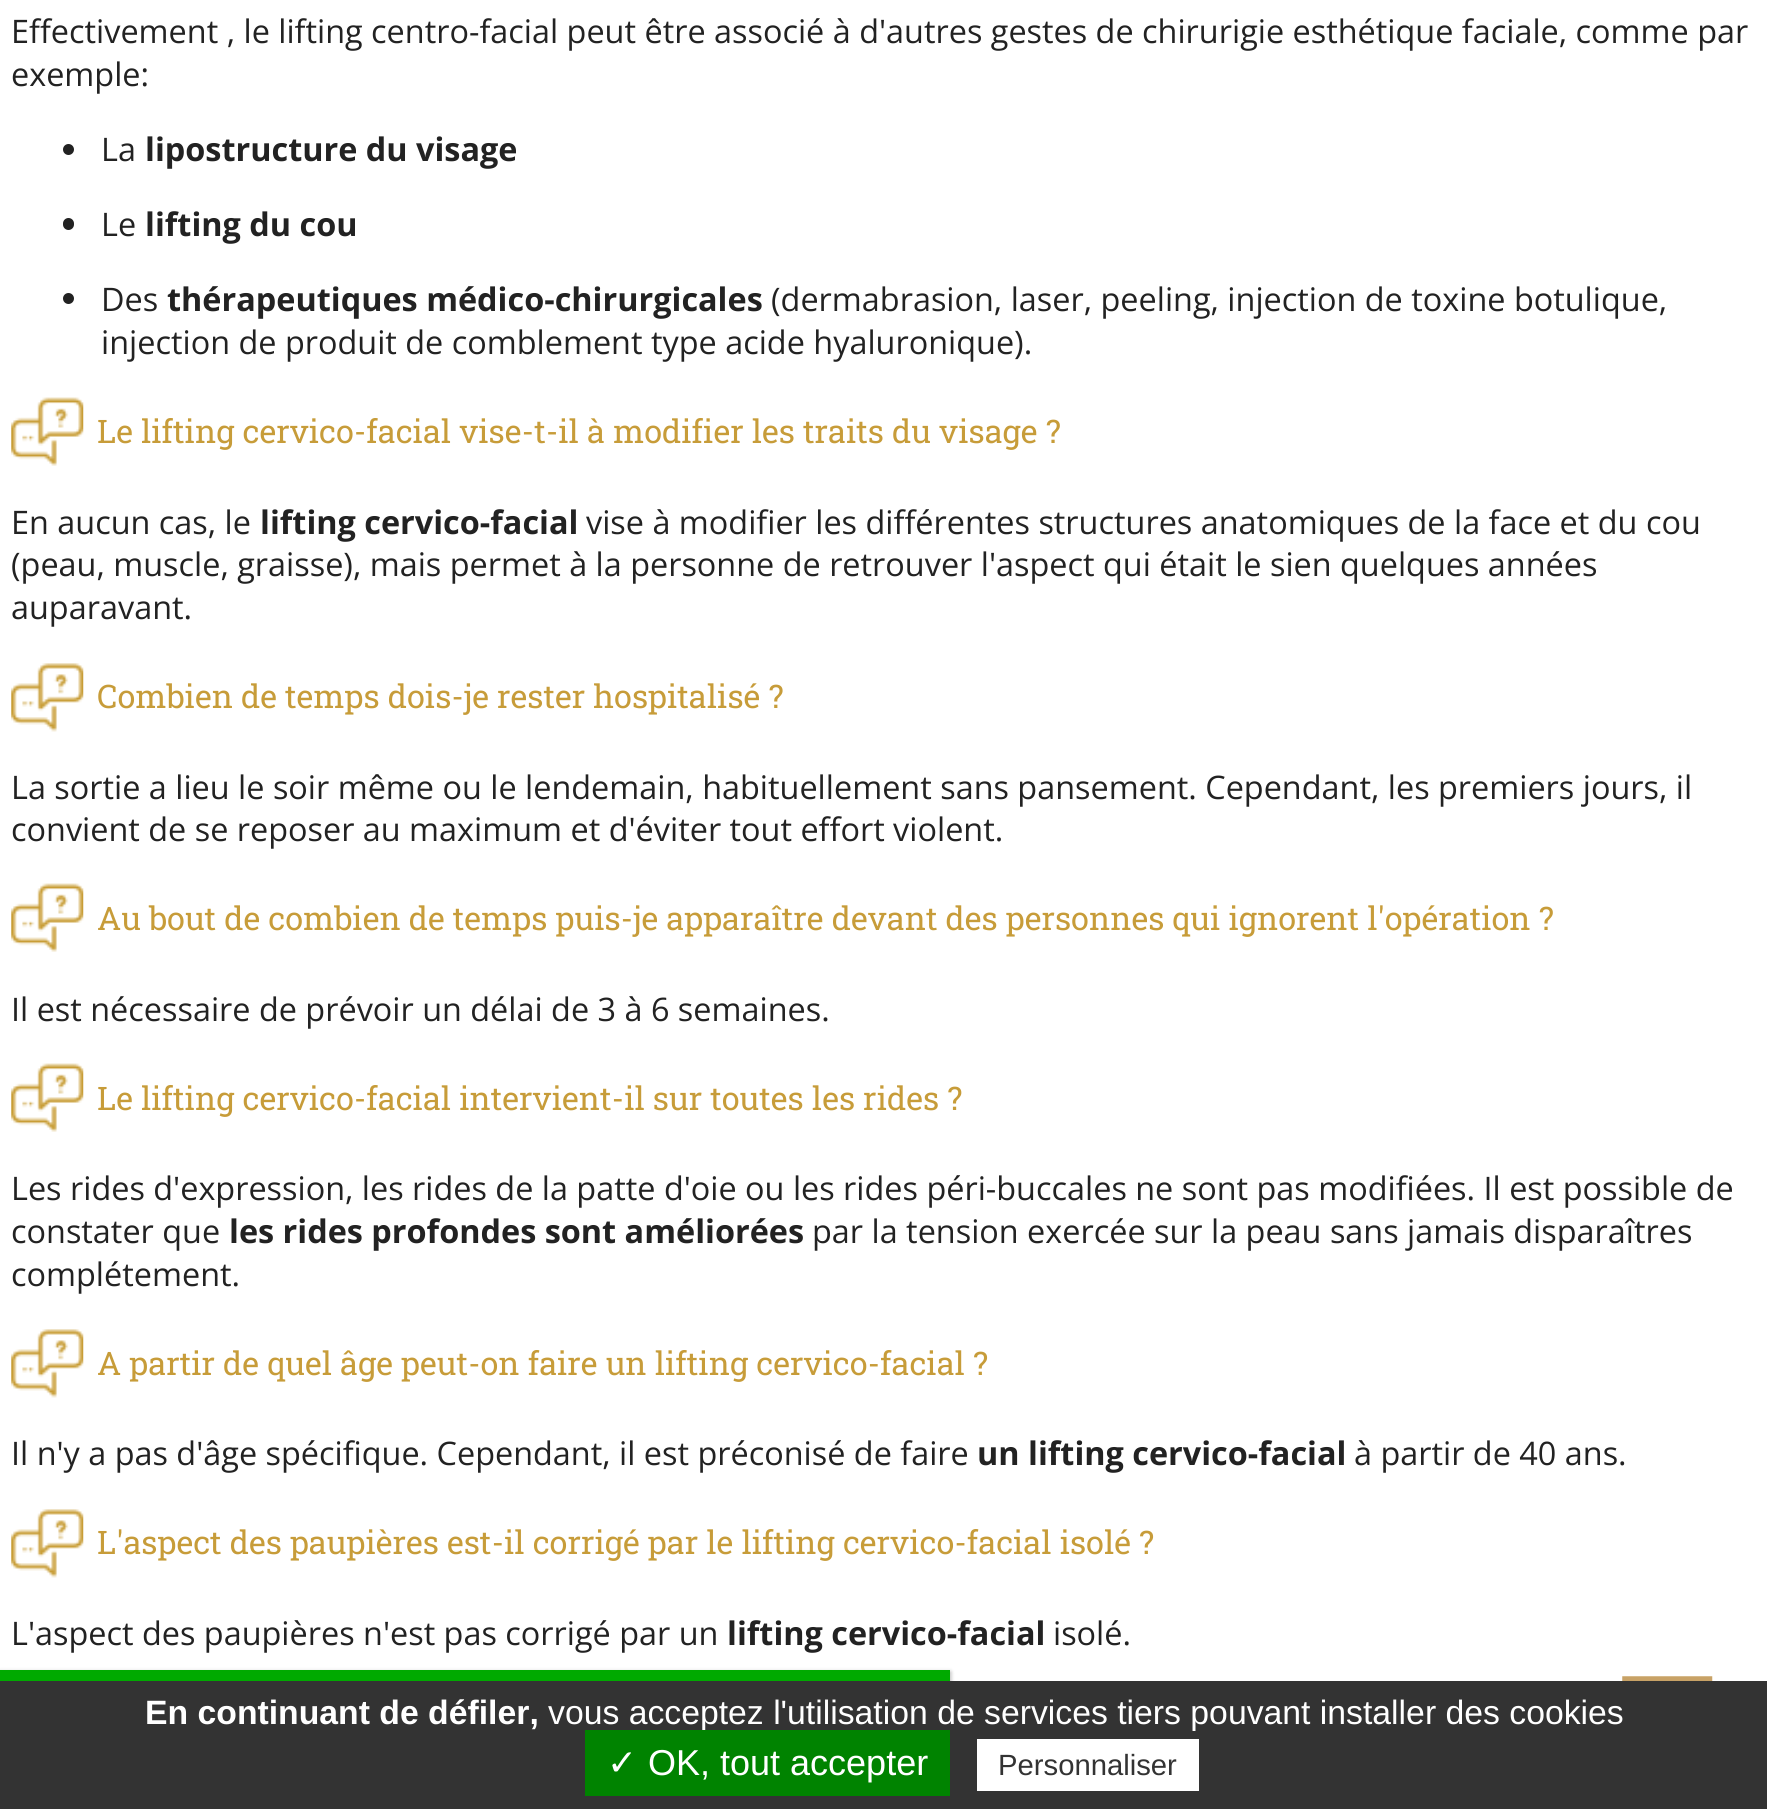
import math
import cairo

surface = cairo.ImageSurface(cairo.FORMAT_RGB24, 1767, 1809)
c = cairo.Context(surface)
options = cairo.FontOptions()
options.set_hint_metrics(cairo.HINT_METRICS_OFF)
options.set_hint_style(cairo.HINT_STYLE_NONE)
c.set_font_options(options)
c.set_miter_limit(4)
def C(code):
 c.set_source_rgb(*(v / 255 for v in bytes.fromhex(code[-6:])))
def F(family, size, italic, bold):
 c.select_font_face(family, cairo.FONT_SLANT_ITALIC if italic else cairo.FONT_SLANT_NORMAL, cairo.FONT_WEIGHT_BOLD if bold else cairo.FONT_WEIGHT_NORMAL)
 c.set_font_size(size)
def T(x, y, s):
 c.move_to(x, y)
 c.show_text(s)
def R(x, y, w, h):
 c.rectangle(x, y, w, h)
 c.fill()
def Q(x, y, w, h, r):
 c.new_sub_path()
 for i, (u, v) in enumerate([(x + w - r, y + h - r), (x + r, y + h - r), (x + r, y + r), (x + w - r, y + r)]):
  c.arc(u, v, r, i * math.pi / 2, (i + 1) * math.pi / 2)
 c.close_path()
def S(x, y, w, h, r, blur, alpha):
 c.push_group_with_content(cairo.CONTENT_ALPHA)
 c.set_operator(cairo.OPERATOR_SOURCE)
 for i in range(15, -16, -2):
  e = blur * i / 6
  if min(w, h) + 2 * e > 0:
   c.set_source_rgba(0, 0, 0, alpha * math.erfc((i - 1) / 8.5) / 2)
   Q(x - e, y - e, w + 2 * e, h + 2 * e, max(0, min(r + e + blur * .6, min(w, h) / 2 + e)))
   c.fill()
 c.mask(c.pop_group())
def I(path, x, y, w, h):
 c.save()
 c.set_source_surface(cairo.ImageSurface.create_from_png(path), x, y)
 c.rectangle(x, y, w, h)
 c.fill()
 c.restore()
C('ffffff')
c.paint()
F('Open Sans',32.4,0,0)
C('222222')
T(11,43,'Effectivement , le lifting centro-facial peut être associé à d\'autres gestes de chirurigie esthétique faciale, comme par')
T(11,86,'exemple:')
c.new_path()
c.arc(68.5,149.5,5.5,0,2 * math.pi)
c.fill()
T(101,161,'La')
F('Open Sans',32.4,0,1)
T(145,161,'lipostructure du visage')
Q(63,218,11,12,5.5)
c.fill()
F('Open Sans',32.4,0,0)
T(101,236,'Le')
F('Open Sans',32.4,0,1)
T(145,236,'lifting du cou')
c.new_path()
c.arc(68.5,298.5,5.5,0,2 * math.pi)
c.fill()
F('Open Sans',32.4,0,0)
T(101,311,'Des')
F('Open Sans',32.4,0,1)
T(167,311,'thérapeutiques médico-chirurgicales')
F('Open Sans',32.4,0,0)
T(771,311,'(dermabrasion, laser, peeling, injection de toxine botulique,')
T(101,354,'injection de produit de comblement type acide hyaluronique).')
I('1.png',11,397,73,69)
F('Roboto Slab',32.4,0,0)
C('c79c39')
T(97,443,'Le lifting cervico-facial vise-t-il à modifier les traits du visage ?')
F('Open Sans',32.4,0,0)
C('222222')
T(11,534,'En aucun cas, le')
F('Open Sans',32.4,0,1)
T(260,534,'lifting cervico-facial')
F('Open Sans',32.4,0,0)
T(586,534,'vise à modifier les différentes structures anatomiques de la face et du cou')
T(11,576,'(peau, muscle, graisse), mais permet à la personne de retrouver l\'aspect qui était le sien quelques années')
T(11,619,'auparavant.')
I('2.png',11,663,73,69)
F('Roboto Slab',32.4,0,0)
C('c79c39')
T(97,708,'Combien de temps dois-je rester hospitalisé ?')
F('Open Sans',32.4,0,0)
C('222222')
T(11,799,'La sortie a lieu le soir même ou le lendemain, habituellement sans pansement. Cependant, les premiers jours, il')
T(11,841,'convient de se reposer au maximum et d\'éviter tout effort violent.')
I('1.png',11,883,73,69)
F('Roboto Slab',32.4,0,0)
C('c79c39')
T(97,930,'Au bout de combien de temps puis-je apparaître devant des personnes qui ignorent l\'opération ?')
F('Open Sans',32.4,0,0)
C('222222')
T(11,1021,'Il est nécessaire de prévoir un délai de 3 à 6 semaines.')
I('1.png',11,1063,73,69)
F('Roboto Slab',32.4,0,0)
C('c79c39')
T(97,1110,'Le lifting cervico-facial intervient-il sur toutes les rides ?')
F('Open Sans',32.4,0,0)
C('222222')
T(11,1200,'Les rides d\'expression, les rides de la patte d\'oie ou les rides péri-buccales ne sont pas modifiées. Il est possible de')
T(11,1243,'constater que')
F('Open Sans',32.4,0,1)
T(229,1243,'les rides profondes sont améliorées')
F('Open Sans',32.4,0,0)
T(812,1243,'par la tension exercée sur la peau sans jamais disparaîtres')
T(11,1286,'complétement.')
I('2.png',11,1329,73,69)
F('Roboto Slab',32.4,0,0)
C('c79c39')
T(97,1375,'A partir de quel âge peut-on faire un lifting cervico-facial ?')
F('Open Sans',32.4,0,0)
C('222222')
T(11,1465,'Il n\'y a pas d\'âge spécifique. Cependant, il est préconisé de faire')
F('Open Sans',32.4,0,1)
T(977,1465,'un lifting cervico-facial')
F('Open Sans',32.4,0,0)
T(1354,1465,'à partir de 40 ans.')
I('2.png',11,1509,73,69)
F('Roboto Slab',32.4,0,0)
C('c79c39')
T(97,1554,'L\'aspect des paupières est-il corrigé par le lifting cervico-facial isolé ?')
F('Open Sans',32.4,0,0)
C('222222')
T(11,1645,'L\'aspect des paupières n\'est pas corrigé par un')
F('Open Sans',32.4,0,1)
T(727,1645,'lifting cervico-facial')
F('Open Sans',32.4,0,0)
T(1053,1645,'isolé.')
I('3.png',1622,1676,91,5)
C('555555')
S(0,1672,950,11,0,2,1)
C('ffffff')
S(0,1670,950,11,0,2,1)
C('00aa00')
R(0,1670,950,11)
C('333333')
R(0,1681,1767,128)
F('Liberation Sans',33.75,0,1)
C('ffffff')
T(145,1724,'En continuant de défiler,')
F('Liberation Sans',33.75,0,0)
T(548,1724,'vous acceptez l\'utilisation de services tiers pouvant installer des cookies')
C('008300')
R(585,1730,365,66)
F('DejaVu Sans',36,0,0)
C('ffffff')
T(607,1775,'✓')
F('Liberation Sans',36,0,0)
T(648,1775,'OK, tout accepter')
R(977,1739,222,52)
F('Liberation Sans',29.25,0,0)
C('333333')
T(998,1775,'Personnaliser')
surface.write_to_png('o.png')
